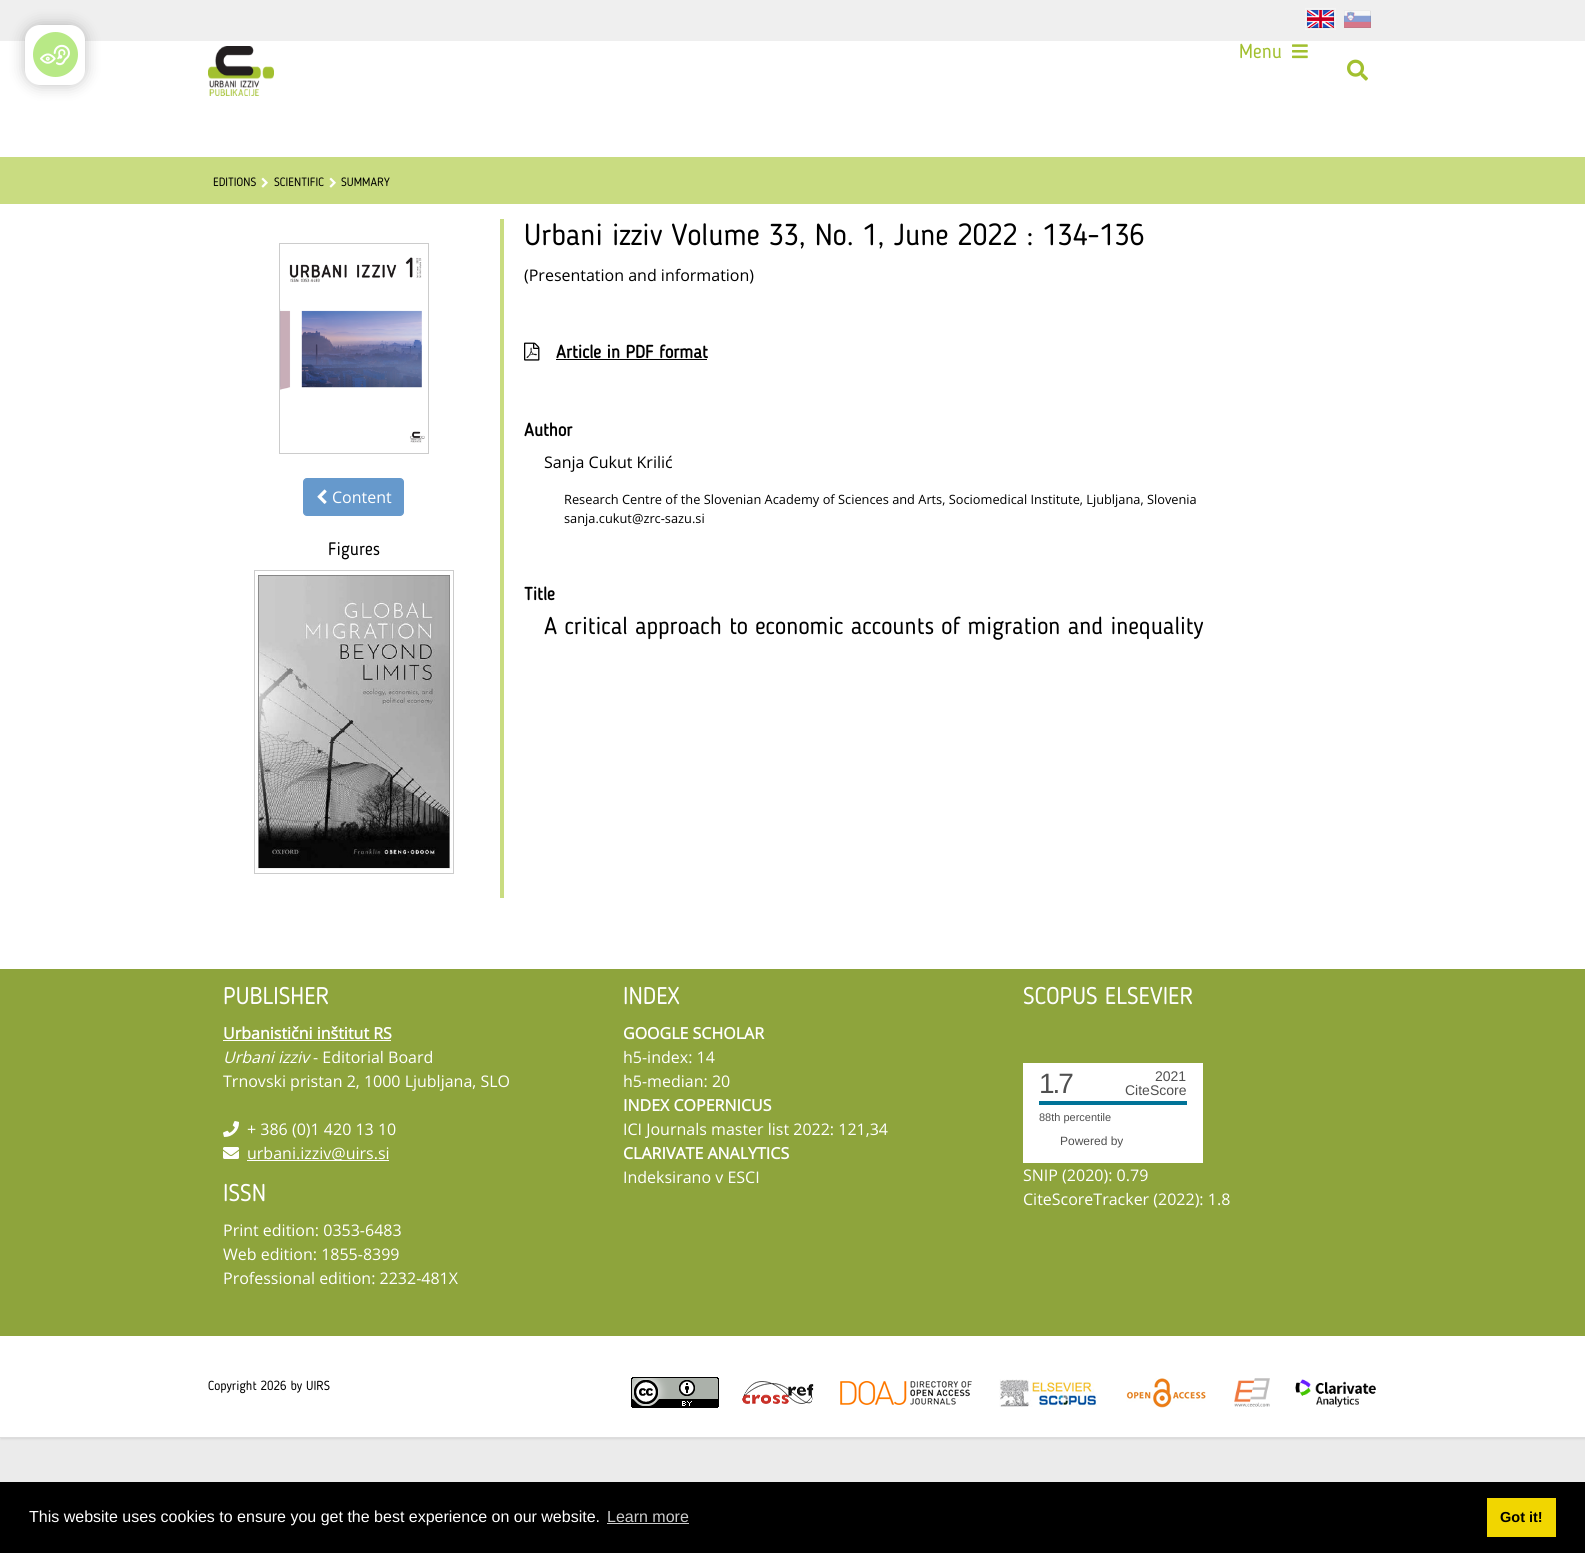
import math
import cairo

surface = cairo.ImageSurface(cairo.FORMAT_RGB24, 1585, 1553)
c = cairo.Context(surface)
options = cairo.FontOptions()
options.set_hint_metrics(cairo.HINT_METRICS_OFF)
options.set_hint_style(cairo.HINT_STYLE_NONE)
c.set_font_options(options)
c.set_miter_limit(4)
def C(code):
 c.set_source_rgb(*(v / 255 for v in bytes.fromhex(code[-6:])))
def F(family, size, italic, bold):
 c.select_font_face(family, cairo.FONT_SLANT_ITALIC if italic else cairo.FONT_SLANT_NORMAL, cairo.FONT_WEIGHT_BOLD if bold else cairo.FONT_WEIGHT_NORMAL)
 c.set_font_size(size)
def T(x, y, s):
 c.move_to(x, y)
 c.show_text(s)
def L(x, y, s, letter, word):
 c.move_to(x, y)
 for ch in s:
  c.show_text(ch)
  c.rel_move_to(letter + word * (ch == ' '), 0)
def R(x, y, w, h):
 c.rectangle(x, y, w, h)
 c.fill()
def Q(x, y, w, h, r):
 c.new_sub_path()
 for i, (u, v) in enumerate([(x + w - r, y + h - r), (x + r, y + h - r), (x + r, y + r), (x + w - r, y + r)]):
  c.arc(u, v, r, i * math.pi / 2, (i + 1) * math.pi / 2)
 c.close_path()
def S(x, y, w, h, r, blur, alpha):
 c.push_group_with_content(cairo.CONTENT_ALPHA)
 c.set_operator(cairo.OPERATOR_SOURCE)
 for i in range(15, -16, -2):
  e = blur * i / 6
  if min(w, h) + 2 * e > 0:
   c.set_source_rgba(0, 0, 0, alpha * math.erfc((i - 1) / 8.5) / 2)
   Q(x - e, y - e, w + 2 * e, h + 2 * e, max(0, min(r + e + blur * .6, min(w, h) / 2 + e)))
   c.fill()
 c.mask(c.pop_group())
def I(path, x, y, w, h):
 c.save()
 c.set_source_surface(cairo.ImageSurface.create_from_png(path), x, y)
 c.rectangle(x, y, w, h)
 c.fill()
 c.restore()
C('ebebeb')
c.paint()
C('c2c2c2')
S(1,1,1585,1437,0,1.5,1)
c.rectangle(-.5,-.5,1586,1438)
C('dddddd')
c.set_line_width(1)
c.stroke()
C('ffffff')
R(0,41,1585,1396)
C('efefef')
R(0,0,1585,41)
C('000000')
S(25,25,60,60,15,7.5,.26)
C('ffffff')
Q(25,25,60,60,15)
c.fill()
C('b8e986')
c.arc(55.5,54.5,22.5,0,2 * math.pi)
c.fill()
I('1.png',40,44,30,22)
c.rectangle(1305.5,8.5,30,21)
C('f4f4f4')
c.stroke()
I('2.png',1307,10,27,18)
I('3.png',1344,10,27,18)
I('4.png',208,46,66,50)
F('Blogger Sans',20,0,0)
C('a2c02f')
T(1239,58,'Menu')
I('5.png',1292,44,16,15)
I('6.png',1347,59,21,22)
C('c9dc81')
R(0,157,1585,47)
F('Blogger Sans',12,0,0)
C('000000')
T(213,186,'EDITIONS')
I('7.png',261,177,7,11)
T(274,186,'SCIENTIFIC')
I('7.png',329,177,7,11)
T(341,186,'SUMMARY')
c.rectangle(279.5,243.5,149,210)
C('cccccc')
c.stroke()
I('8.png',280,257,145,186)
C('6699cc')
Q(303.5,478.5,100,37,3.5)
c.fill_preserve()
c.stroke()
I('9.png',317,489,10,15)
F('Open Sans',16,0,0)
C('ffffff')
T(332,503,'Content')
F('Blogger Sans',18,0,0)
C('000000')
T(328,555,'Figures')
c.rectangle(254.5,570.5,199,303)
C('cccccc')
c.stroke()
I('10.png',256,575,196,294)
C('c9dc81')
R(500,219,4,679)
F('Blogger Sans',30,0,0)
C('000000')
T(524,245,'Urbani izziv Volume 33, No. 1, June 2022 : 134-136')
F('Open Sans',16,0,0)
T(524,281,'(Presentation and information)')
I('11.png',524,342,16,19)
F('Blogger Sans',18,0,1)
T(556,358,'Article in PDF format')
R(556,359,151,1)
T(524,436,'Author')
F('Open Sans',16,0,0)
T(544,468,'Sanja Cukut Krilić')
F('Open Sans',12.8,0,0)
T(564,504,'Research Centre of the Slovenian Academy of Sciences and Arts, Sociomedical Institute, Ljubljana, Slovenia')
T(564,523,'sanja.cukut@zrc-sazu.si')
F('Blogger Sans',18,0,1)
T(524,600,'Title')
F('Blogger Sans',24,0,0)
T(544,634,'A critical approach to economic accounts of migration and inequality')
C('8ea43c')
R(0,969,1585,367)
C('ffffff')
T(223,1004,'PUBLISHER')
F('Open Sans',16,0,1)
T(223,1039,'Urbanistični inštitut RS')
R(223,1040,168,1)
F('Open Sans',16,1,0)
T(223,1063,'Urbani izziv')
F('Open Sans',16,0,0)
T(313,1063,'- Editorial Board')
T(223,1087,'Trnovski pristan 2, 1000 Ljubljana, SLO')
I('12.png',223,1121,16,16)
T(247,1135,'+ 386 (0)1 420 13 10')
I('13.png',223,1147,16,12)
R(247,1160,142,1)
T(247,1159,'urbani.izziv@uirs.si')
F('Blogger Sans',24,0,0)
T(223,1201,'ISSN')
F('Open Sans',16,0,0)
T(223,1236,'Print edition: 0353-6483')
T(223,1260,'Web edition: 1855-8399')
T(223,1284,'Professional edition: 2232-481X')
F('Blogger Sans',24,0,0)
T(623,1004,'INDEX')
F('Open Sans',16,0,1)
T(623,1039,'GOOGLE SCHOLAR')
F('Open Sans',16,0,0)
T(623,1063,'h5-index: 14')
T(623,1087,'h5-median: 20')
F('Open Sans',16,0,1)
T(623,1111,'INDEX COPERNICUS')
F('Open Sans',16,0,0)
T(623,1135,'ICI Journals master list 2022: 121,34')
F('Open Sans',16,0,1)
T(623,1159,'CLARIVATE ANALYTICS')
F('Open Sans',16,0,0)
T(623,1183,'Indeksirano v ESCI')
F('Blogger Sans',24,0,0)
T(1023,1004,'SCOPUS ELSEVIER')
R(1023,1063,180,100)
F('Liberation Sans',28,0,0)
C('505050')
L(1039,1093,'1.7',-2,0)
F('Liberation Sans',14,0,0)
T(1155,1081,'2021')
T(1125,1095,'CiteScore')
C('007398')
R(1039,1101,148,4)
F('Liberation Sans',11,0,0)
C('505050')
T(1039,1121,'88th percentile')
F('Liberation Sans',12,0,0)
T(1060,1145,'Powered by')
F('Open Sans',16,0,0)
C('ffffff')
T(1023,1181,'SNIP (2020): 0.79')
T(1023,1205,'CiteScoreTracker (2022): 1.8')
F('Blogger Sans',13,0,0)
C('000000')
T(208,1390,'Copyright 2026 by UIRS')
I('14.png',631,1377,88,31)
I('15.png',742,1381,72,23)
I('16.png',840,1381,132,24)
I('17.png',999,1379,98,28)
I('18.png',1126,1378,80,30)
I('19.png',1234,1378,36,29)
I('20.png',1295,1379,81,29)
R(0,1482,1585,71)
F('Liberation Sans',16,0,0)
C('ffffff')
T(29,1522,'This website uses cookies to ensure you get the best experience on our website.')
C('cccccc')
T(607,1522,'Learn more')
R(607,1523,82,1)
C('f1d600')
R(1487,1498,69,39)
F('Liberation Sans',14.5,0,1)
C('000000')
T(1500,1522,'Got it!')
surface.write_to_png('o.png')
